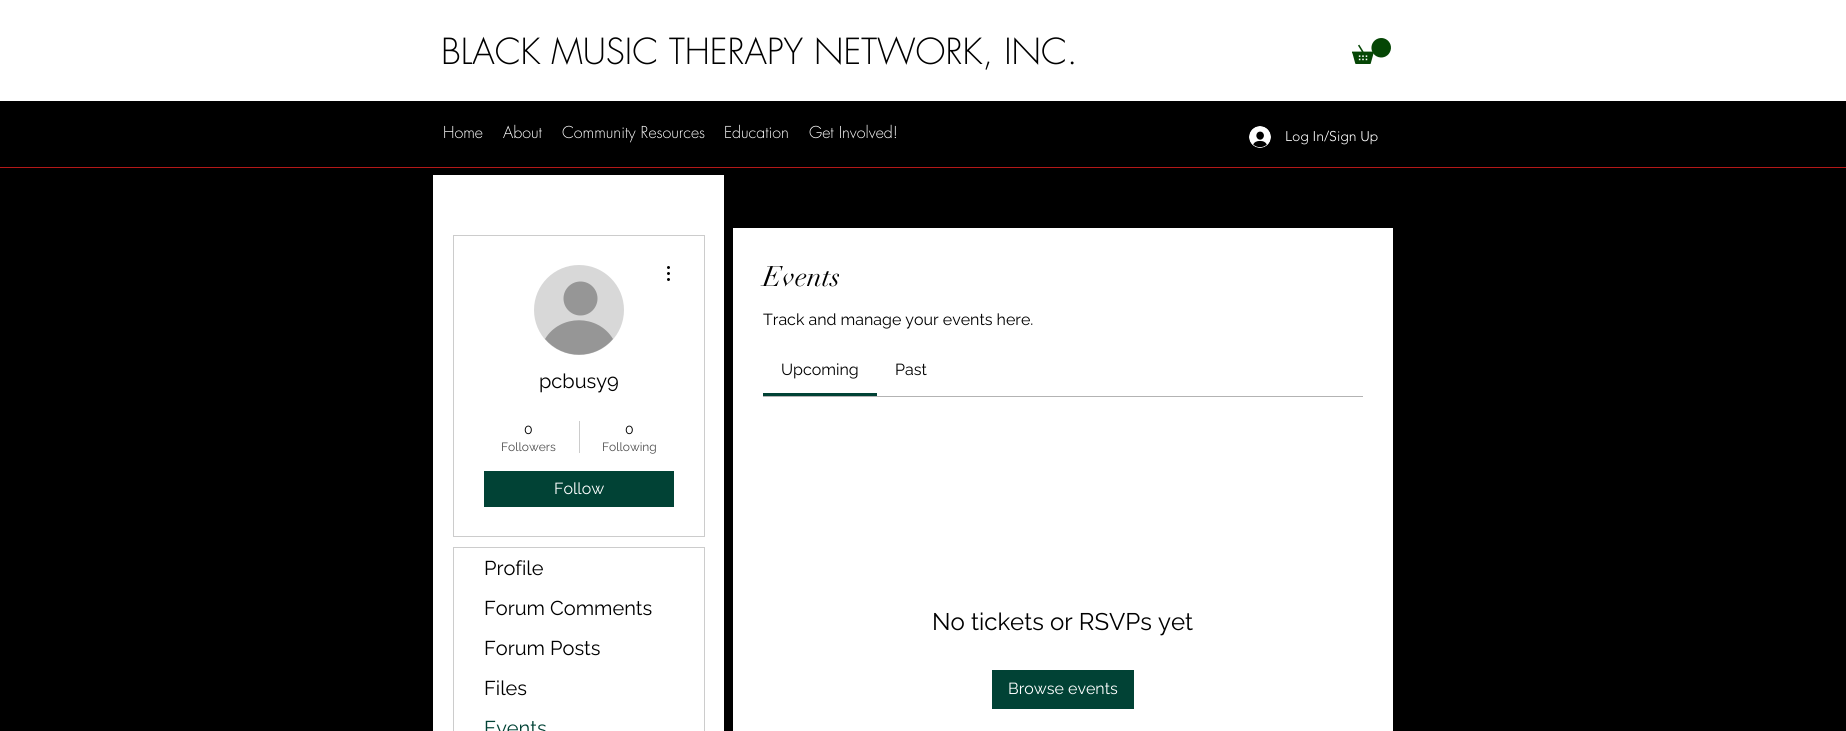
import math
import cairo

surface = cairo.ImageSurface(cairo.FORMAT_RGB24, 1846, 731)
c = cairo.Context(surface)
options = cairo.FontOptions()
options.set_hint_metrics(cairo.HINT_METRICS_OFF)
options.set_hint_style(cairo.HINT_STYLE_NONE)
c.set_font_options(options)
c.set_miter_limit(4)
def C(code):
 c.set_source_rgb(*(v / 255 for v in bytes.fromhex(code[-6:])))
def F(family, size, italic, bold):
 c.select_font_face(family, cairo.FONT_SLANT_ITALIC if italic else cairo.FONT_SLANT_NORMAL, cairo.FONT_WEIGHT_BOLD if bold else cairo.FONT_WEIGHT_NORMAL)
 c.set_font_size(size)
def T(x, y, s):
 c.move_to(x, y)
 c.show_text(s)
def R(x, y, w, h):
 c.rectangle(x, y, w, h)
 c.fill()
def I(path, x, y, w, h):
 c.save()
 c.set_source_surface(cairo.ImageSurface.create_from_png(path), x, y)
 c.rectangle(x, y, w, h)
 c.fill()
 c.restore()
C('000000')
c.paint()
C('ffffff')
R(0,0,1846,101)
F('futura Light',35,0,0)
C('000000')
T(441,64,'BLACK MUSIC THERAPY NETWORK, INC.')
I('1.png',1352,38,39,26)
F('futura Light',16,0,0)
C('ffffff')
T(443,138,'Home')
T(503,138,'About')
T(562,138,'Community Resources')
T(724,138,'Education')
T(809,138,'Get Involved!')
I('2.png',1249,126,22,22)
F('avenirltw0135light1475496 Light',14,0,0)
T(1285,141,'Log In/Sign Up')
C('b41818')
R(0,167,1846,1)
C('ffffff')
R(433,175,291,556)
c.rectangle(453.5,235.5,251,301)
C('cccccc')
c.set_line_width(1)
c.stroke()
C('d8d8d8')
c.arc(579,310,45,0,2 * math.pi)
c.fill()
C('969696')
c.arc(580.5,298.5,17,0,2 * math.pi)
c.fill()
c.new_path()
c.move_to(613,339)
c.curve_to(595,360,563,360,545,339)
c.curve_to(560,314,598,314,613,339)
c.close_path()
c.fill()
I('3.png',667,266,3,15)
F('Raleway',20,0,0)
C('000000')
T(539,388,'pcbusy9')
F('Raleway',14,0,0)
T(524,434,'0')
F('Raleway',12,0,0)
C('4d4d4d')
T(501,451,'Followers')
C('cccccc')
R(579,421,1,32)
F('Raleway',14,0,0)
C('000000')
T(625,434,'0')
F('Raleway',12,0,0)
C('4d4d4d')
T(602,451,'Following')
C('014235')
R(484,471,190,36)
F('Raleway',16,0,0)
C('ffffff')
T(554,494,'Follow')
c.rectangle(453.5,547.5,251,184)
C('cccccc')
c.stroke()
F('Raleway',20,0,0)
C('000000')
T(484,575,'Profile')
T(484,615,'Forum Comments')
T(484,655,'Forum Posts')
T(484,695,'Files')
C('014235')
T(484,735,'Events')
C('ffffff')
R(733,228,660,503)
F('didot',28,0,0)
C('000000')
T(763,286,'Events')
F('Raleway',16,0,0)
T(763,325,'Track and manage your events here.')
C('014235')
R(763,393,114,3)
C('000000')
T(781,375,'Upcoming')
T(895,375,'Past')
C('b3b3b3')
R(763,396,600,1)
F('Raleway',24,0,0)
C('000000')
T(932,630,'No tickets or RSVPs yet')
C('014235')
R(992,670,142,39)
F('Raleway',16,0,0)
C('ffffff')
T(1008,694,'Browse events')
surface.write_to_png('o.png')
